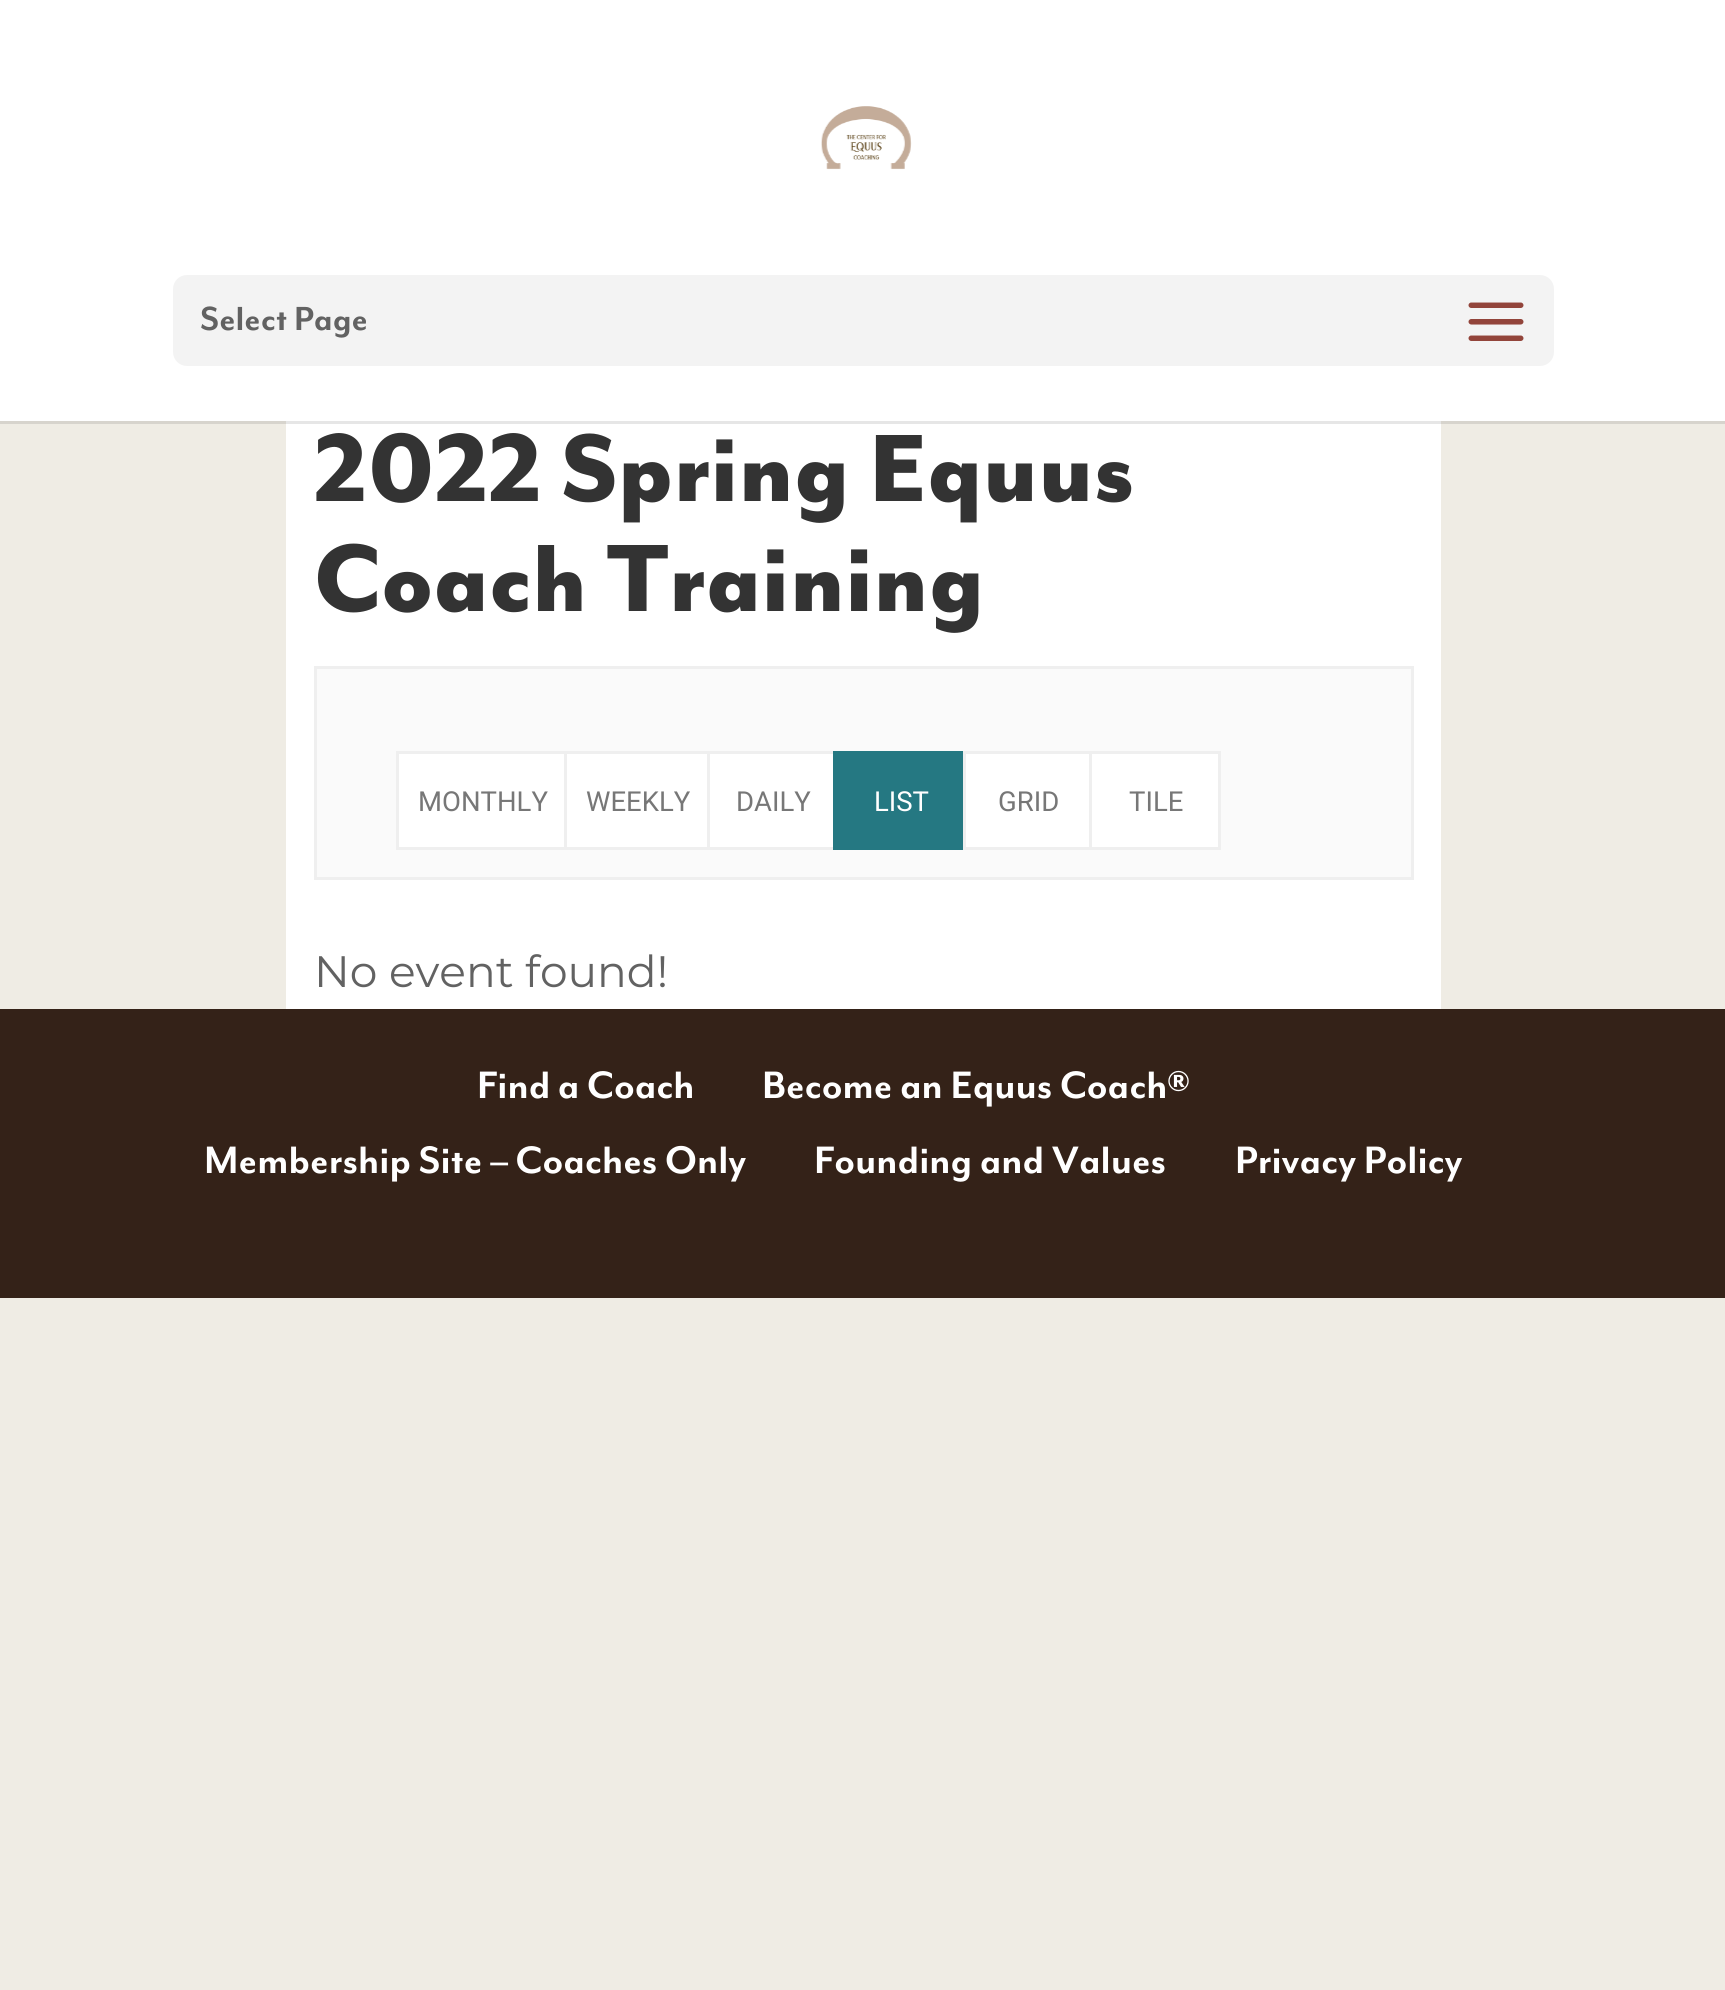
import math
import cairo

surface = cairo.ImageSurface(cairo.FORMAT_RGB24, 1725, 1990)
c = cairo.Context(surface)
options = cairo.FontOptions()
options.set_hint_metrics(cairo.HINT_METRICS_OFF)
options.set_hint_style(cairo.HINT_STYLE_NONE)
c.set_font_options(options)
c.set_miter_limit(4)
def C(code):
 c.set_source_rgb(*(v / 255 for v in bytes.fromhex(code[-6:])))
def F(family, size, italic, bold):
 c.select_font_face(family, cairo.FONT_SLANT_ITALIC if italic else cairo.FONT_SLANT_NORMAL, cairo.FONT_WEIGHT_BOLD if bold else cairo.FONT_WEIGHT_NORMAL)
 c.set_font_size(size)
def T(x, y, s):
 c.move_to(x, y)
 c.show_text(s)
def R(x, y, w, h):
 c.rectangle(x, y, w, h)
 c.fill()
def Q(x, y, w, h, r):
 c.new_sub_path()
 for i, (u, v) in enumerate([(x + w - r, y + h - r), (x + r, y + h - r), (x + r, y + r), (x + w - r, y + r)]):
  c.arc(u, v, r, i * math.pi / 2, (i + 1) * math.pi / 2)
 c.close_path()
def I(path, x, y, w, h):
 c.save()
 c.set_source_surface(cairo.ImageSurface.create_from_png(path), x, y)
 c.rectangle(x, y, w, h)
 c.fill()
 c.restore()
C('efece4')
c.paint()
C('d7d4cd')
R(0,421,1725,3)
C('ffffff')
R(0,0,1725,421)
I('1.png',821,106,91,64)
C('f3f3f3')
Q(173,275,1381,91,14)
c.fill()
F('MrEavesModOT',38.5,0,1)
C('626262')
T(200,330,'Select Page')
I('2.png',1468,302,56,39)
C('ffffff')
R(286,424,1155,585)
C('e6e6e6')
R(286,421,1155,3)
F('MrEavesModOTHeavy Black',110,0,0)
C('333333')
T(314,501,'2022 Spring Equus')
T(314,611,'Coach Training')
C('fafafa')
c.rectangle(315.5,667.5,1097,211)
c.fill_preserve()
C('efefef')
c.set_line_width(3)
c.stroke()
C('ffffff')
R(399,754,165,93)
c.rectangle(397.5,752.5,170,96)
C('efefef')
c.stroke()
F('Roboto',27.5,0,0)
C('777777')
T(418,811,'MONTHLY')
C('ffffff')
R(567,754,140,93)
c.rectangle(565.5,752.5,145,96)
C('efefef')
c.stroke()
C('777777')
T(586,811,'WEEKLY')
C('ffffff')
R(710,754,123,93)
c.rectangle(708.5,752.5,129,96)
C('efefef')
c.stroke()
C('777777')
T(736,811,'DAILY')
C('257882')
R(833,751,130,99)
C('ffffff')
T(874,811,'LIST')
R(966,754,123,93)
c.rectangle(964.5,752.5,129,96)
C('efefef')
c.stroke()
C('777777')
T(998,811,'GRID')
C('ffffff')
c.rectangle(1090.5,752.5,129,96)
c.fill_preserve()
C('efefef')
c.stroke()
C('777777')
T(1129,811,'TILE')
F('Montserrat',44,0,0)
C('626262')
T(314,987,'No event found!')
C('342218')
R(0,1009,1725,289)
F('MrEavesModOT',44,0,1)
C('ffffff')
T(477,1098,'Find a Coach')
T(762,1098,'Become an Equus Coach®')
T(204,1173,'Membership Site – Coaches Only')
T(814,1173,'Founding and Values')
T(1235,1173,'Privacy Policy')
surface.write_to_png('o.png')
